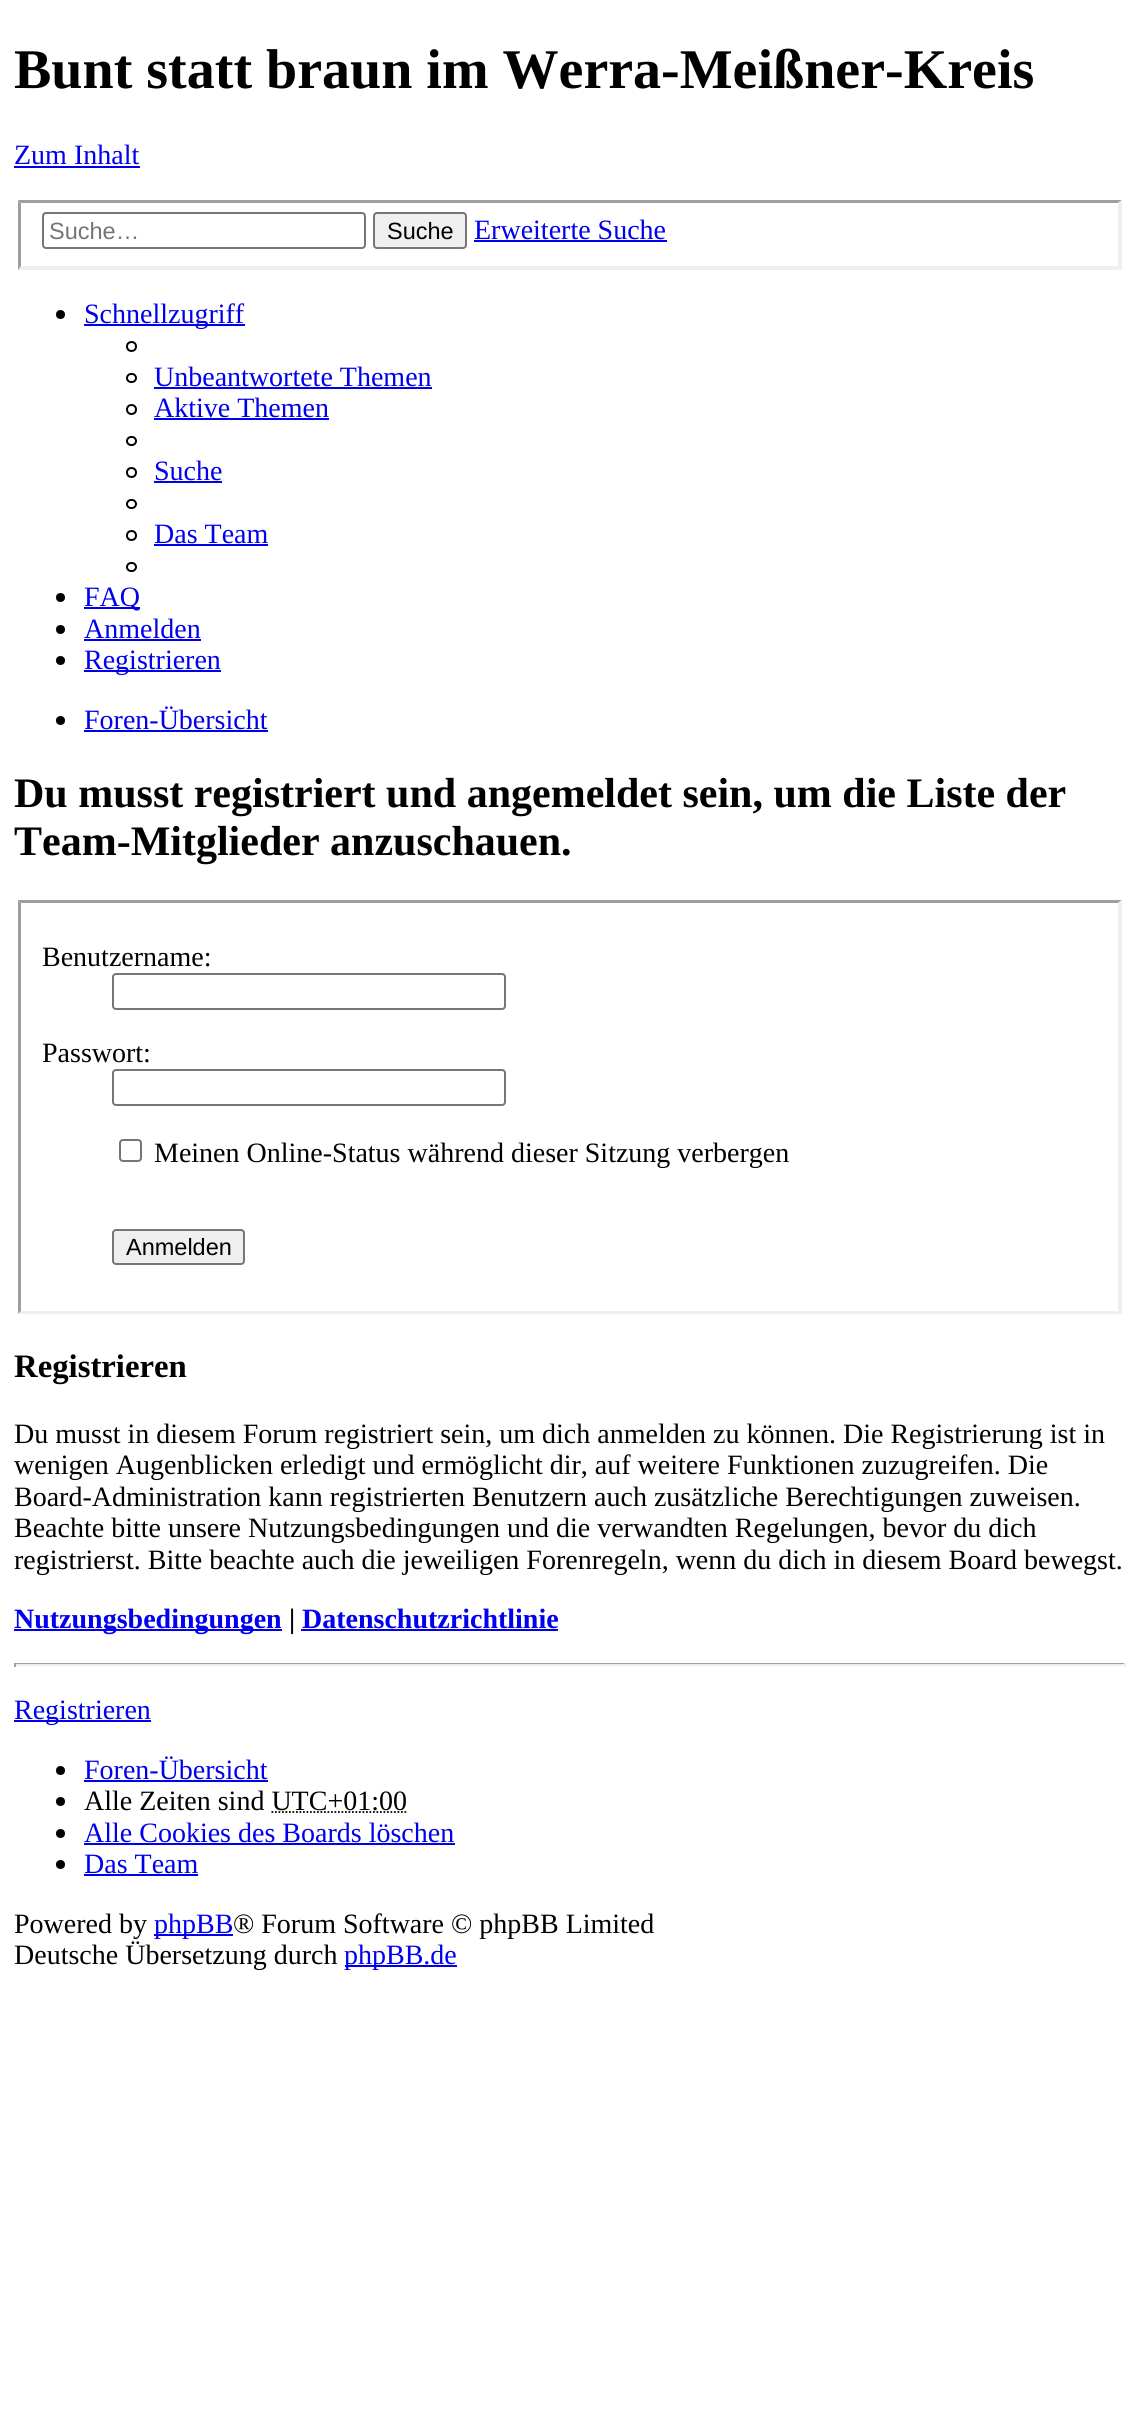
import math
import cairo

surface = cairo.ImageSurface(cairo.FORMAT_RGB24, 1138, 2418)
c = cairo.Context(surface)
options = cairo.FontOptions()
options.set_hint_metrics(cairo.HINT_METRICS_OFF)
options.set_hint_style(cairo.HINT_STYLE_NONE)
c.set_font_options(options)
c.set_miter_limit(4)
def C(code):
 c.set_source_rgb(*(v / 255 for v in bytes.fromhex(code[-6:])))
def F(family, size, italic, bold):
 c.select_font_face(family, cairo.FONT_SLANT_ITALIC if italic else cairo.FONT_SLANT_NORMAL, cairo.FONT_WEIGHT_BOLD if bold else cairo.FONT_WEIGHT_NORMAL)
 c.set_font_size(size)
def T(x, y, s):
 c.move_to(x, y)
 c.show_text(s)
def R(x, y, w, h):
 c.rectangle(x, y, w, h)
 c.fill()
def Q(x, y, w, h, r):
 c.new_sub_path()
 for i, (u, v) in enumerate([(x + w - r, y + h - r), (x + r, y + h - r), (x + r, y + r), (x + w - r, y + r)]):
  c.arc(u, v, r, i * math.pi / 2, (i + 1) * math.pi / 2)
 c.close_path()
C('ffffff')
c.paint()
F('Liberation Serif',56,0,1)
C('000000')
T(14,88,'Bunt statt braun im Werra-Meißner-Kreis')
F('Liberation Serif',28,0,0)
C('0000ee')
T(14,164,'Zum Inhalt')
R(14,166,126,2)
C('9f9f9f')
c.new_path()
c.move_to(18,200)
c.line_to(1122,200)
c.line_to(1118,203)
c.line_to(21,203)
c.close_path()
c.fill()
C('efefef')
c.new_path()
c.move_to(1122,200)
c.line_to(1122,270)
c.line_to(1118,266)
c.line_to(1118,203)
c.close_path()
c.fill()
c.new_path()
c.move_to(1122,270)
c.line_to(18,270)
c.line_to(21,266)
c.line_to(1118,266)
c.close_path()
c.fill()
C('9f9f9f')
c.new_path()
c.move_to(18,270)
c.line_to(18,200)
c.line_to(21,203)
c.line_to(21,266)
c.close_path()
c.fill()
Q(43,213,322,35,3)
C('767676')
c.stroke()
F('Liberation Sans',23.5,0,0)
C('757575')
T(49,239,'Suche…')
C('efefef')
Q(374,213,92,35,3)
c.fill_preserve()
C('767676')
c.stroke()
C('000000')
T(387,239,'Suche')
F('Liberation Serif',28,0,0)
C('0000ee')
T(474,239,'Erweiterte Suche')
R(474,240,193,2)
C('000000')
c.new_path()
c.arc(60.5,314.5,4.5,0,2 * math.pi)
c.fill()
C('0000ee')
R(84,324,161,2)
T(84,323,'Schnellzugriff')
c.new_path()
c.arc(131.5,346.5,4.5,0,2 * math.pi)
C('000000')
c.stroke()
Q(127,374,9,8,4)
c.stroke()
C('0000ee')
T(154,386,'Unbeantwortete Themen')
R(154,387,278,2)
c.new_path()
c.arc(131.5,409.5,4.5,0,2 * math.pi)
C('000000')
c.stroke()
C('0000ee')
T(154,417,'Aktive Themen')
R(154,418,175,2)
Q(127,437,9,8,4)
C('000000')
c.stroke()
c.arc(131.5,472.5,4.5,0,2 * math.pi)
c.stroke()
C('0000ee')
T(154,480,'Suche')
R(154,481,68,2)
Q(127,500,9,8,4)
C('000000')
c.stroke()
c.arc(131.5,535.5,4.5,0,2 * math.pi)
c.stroke()
C('0000ee')
T(154,543,'Das Team')
R(154,544,114,2)
Q(127,563,9,8,4)
C('000000')
c.stroke()
c.arc(60.5,597.5,4.5,0,2 * math.pi)
c.fill()
C('0000ee')
R(84,607,56,2)
T(84,606,'FAQ')
C('000000')
c.new_path()
c.arc(60.5,629.5,4.5,0,2 * math.pi)
c.fill()
C('0000ee')
T(84,638,'Anmelden')
R(84,639,117,2)
C('000000')
c.new_path()
c.arc(60.5,660.5,4.5,0,2 * math.pi)
c.fill()
C('0000ee')
R(84,670,137,2)
T(84,669,'Registrieren')
C('000000')
c.new_path()
c.arc(60.5,720.5,4.5,0,2 * math.pi)
c.fill()
C('0000ee')
T(84,729,'Foren-Übersicht')
R(84,730,184,2)
F('Liberation Serif',42,0,1)
C('000000')
T(14,807,'Du musst registriert und angemeldet sein, um die Liste der')
T(14,855,'Team-Mitglieder anzuschauen.')
C('9f9f9f')
c.new_path()
c.move_to(18,900)
c.line_to(1122,900)
c.line_to(1118,903)
c.line_to(21,903)
c.close_path()
c.fill()
C('efefef')
c.new_path()
c.move_to(1122,900)
c.line_to(1122,1314)
c.line_to(1118,1311)
c.line_to(1118,903)
c.close_path()
c.fill()
c.new_path()
c.move_to(1122,1314)
c.line_to(18,1314)
c.line_to(21,1311)
c.line_to(1118,1311)
c.close_path()
c.fill()
C('9f9f9f')
c.new_path()
c.move_to(18,1314)
c.line_to(18,900)
c.line_to(21,903)
c.line_to(21,1311)
c.close_path()
c.fill()
F('Liberation Serif',28,0,0)
C('000000')
T(42,966,'Benutzername:')
Q(113,974,392,35,3)
C('767676')
c.stroke()
C('000000')
T(42,1062,'Passwort:')
Q(113,1070,392,35,3)
C('767676')
c.stroke()
Q(120,1140,21,21,3)
c.stroke()
C('000000')
T(154,1162,'Meinen Online-Status während dieser Sitzung verbergen')
C('efefef')
Q(113,1230,131,34,3)
c.fill_preserve()
C('767676')
c.stroke()
F('Liberation Sans',23.5,0,0)
C('000000')
T(126,1255,'Anmelden')
F('Liberation Serif',32.75,0,1)
T(14,1377,'Registrieren')
F('Liberation Serif',28,0,0)
T(14,1443,'Du musst in diesem Forum registriert sein, um dich anmelden zu können. Die Registrierung ist in')
T(14,1474,'wenigen Augenblicken erledigt und ermöglicht dir, auf weitere Funktionen zuzugreifen. Die')
T(14,1506,'Board-Administration kann registrierten Benutzern auch zusätzliche Berechtigungen zuweisen.')
T(14,1537,'Beachte bitte unsere Nutzungsbedingungen und die verwandten Regelungen, bevor du dich')
T(14,1569,'registrierst. Bitte beachte auch die jeweiligen Forenregeln, wenn du dich in diesem Board bewegst.')
C('0000ee')
R(14,1629,268,2)
F('Liberation Serif',28,0,1)
T(14,1628,'Nutzungsbedingungen')
C('000000')
T(289,1628,'|')
C('0000ee')
T(302,1628,'Datenschutzrichtlinie')
R(301,1629,257,2)
C('9f9f9f')
R(14,1663,1111,1)
C('eeeeee')
R(1124,1663,2,4)
R(14,1664,1111,2)
C('9f9f9f')
R(14,1663,2,4)
C('0000ee')
R(14,1720,137,2)
F('Liberation Serif',28,0,0)
T(14,1719,'Registrieren')
C('000000')
c.new_path()
c.arc(60.5,1770.5,4.5,0,2 * math.pi)
c.fill()
C('0000ee')
T(84,1779,'Foren-Übersicht')
R(84,1780,184,2)
C('000000')
c.new_path()
c.arc(60.5,1801.5,4.5,0,2 * math.pi)
c.fill()
T(84,1810,'Alle Zeiten sind UTC+01:00')
c.new_path()
c.move_to(271.5,1812)
c.line_to(407,1812)
c.set_line_width(1.8)
c.set_dash([1.75,1.75])
c.stroke()
c.arc(60.5,1833.5,4.5,0,2 * math.pi)
c.fill()
C('0000ee')
T(84,1842,'Alle Cookies des Boards löschen')
R(84,1843,371,2)
C('000000')
c.new_path()
c.arc(60.5,1864.5,4.5,0,2 * math.pi)
c.fill()
C('0000ee')
T(84,1873,'Das Team')
R(84,1874,114,2)
C('000000')
T(14,1933,'Powered by')
C('0000ee')
R(154,1934,79,2)
T(154,1933,'phpBB')
C('000000')
T(233,1933,'® Forum Software © phpBB Limited')
T(14,1964,'Deutsche Übersetzung durch')
C('0000ee')
R(345,1965,112,2)
T(344,1964,'phpBB.de')
surface.write_to_png('o.png')
